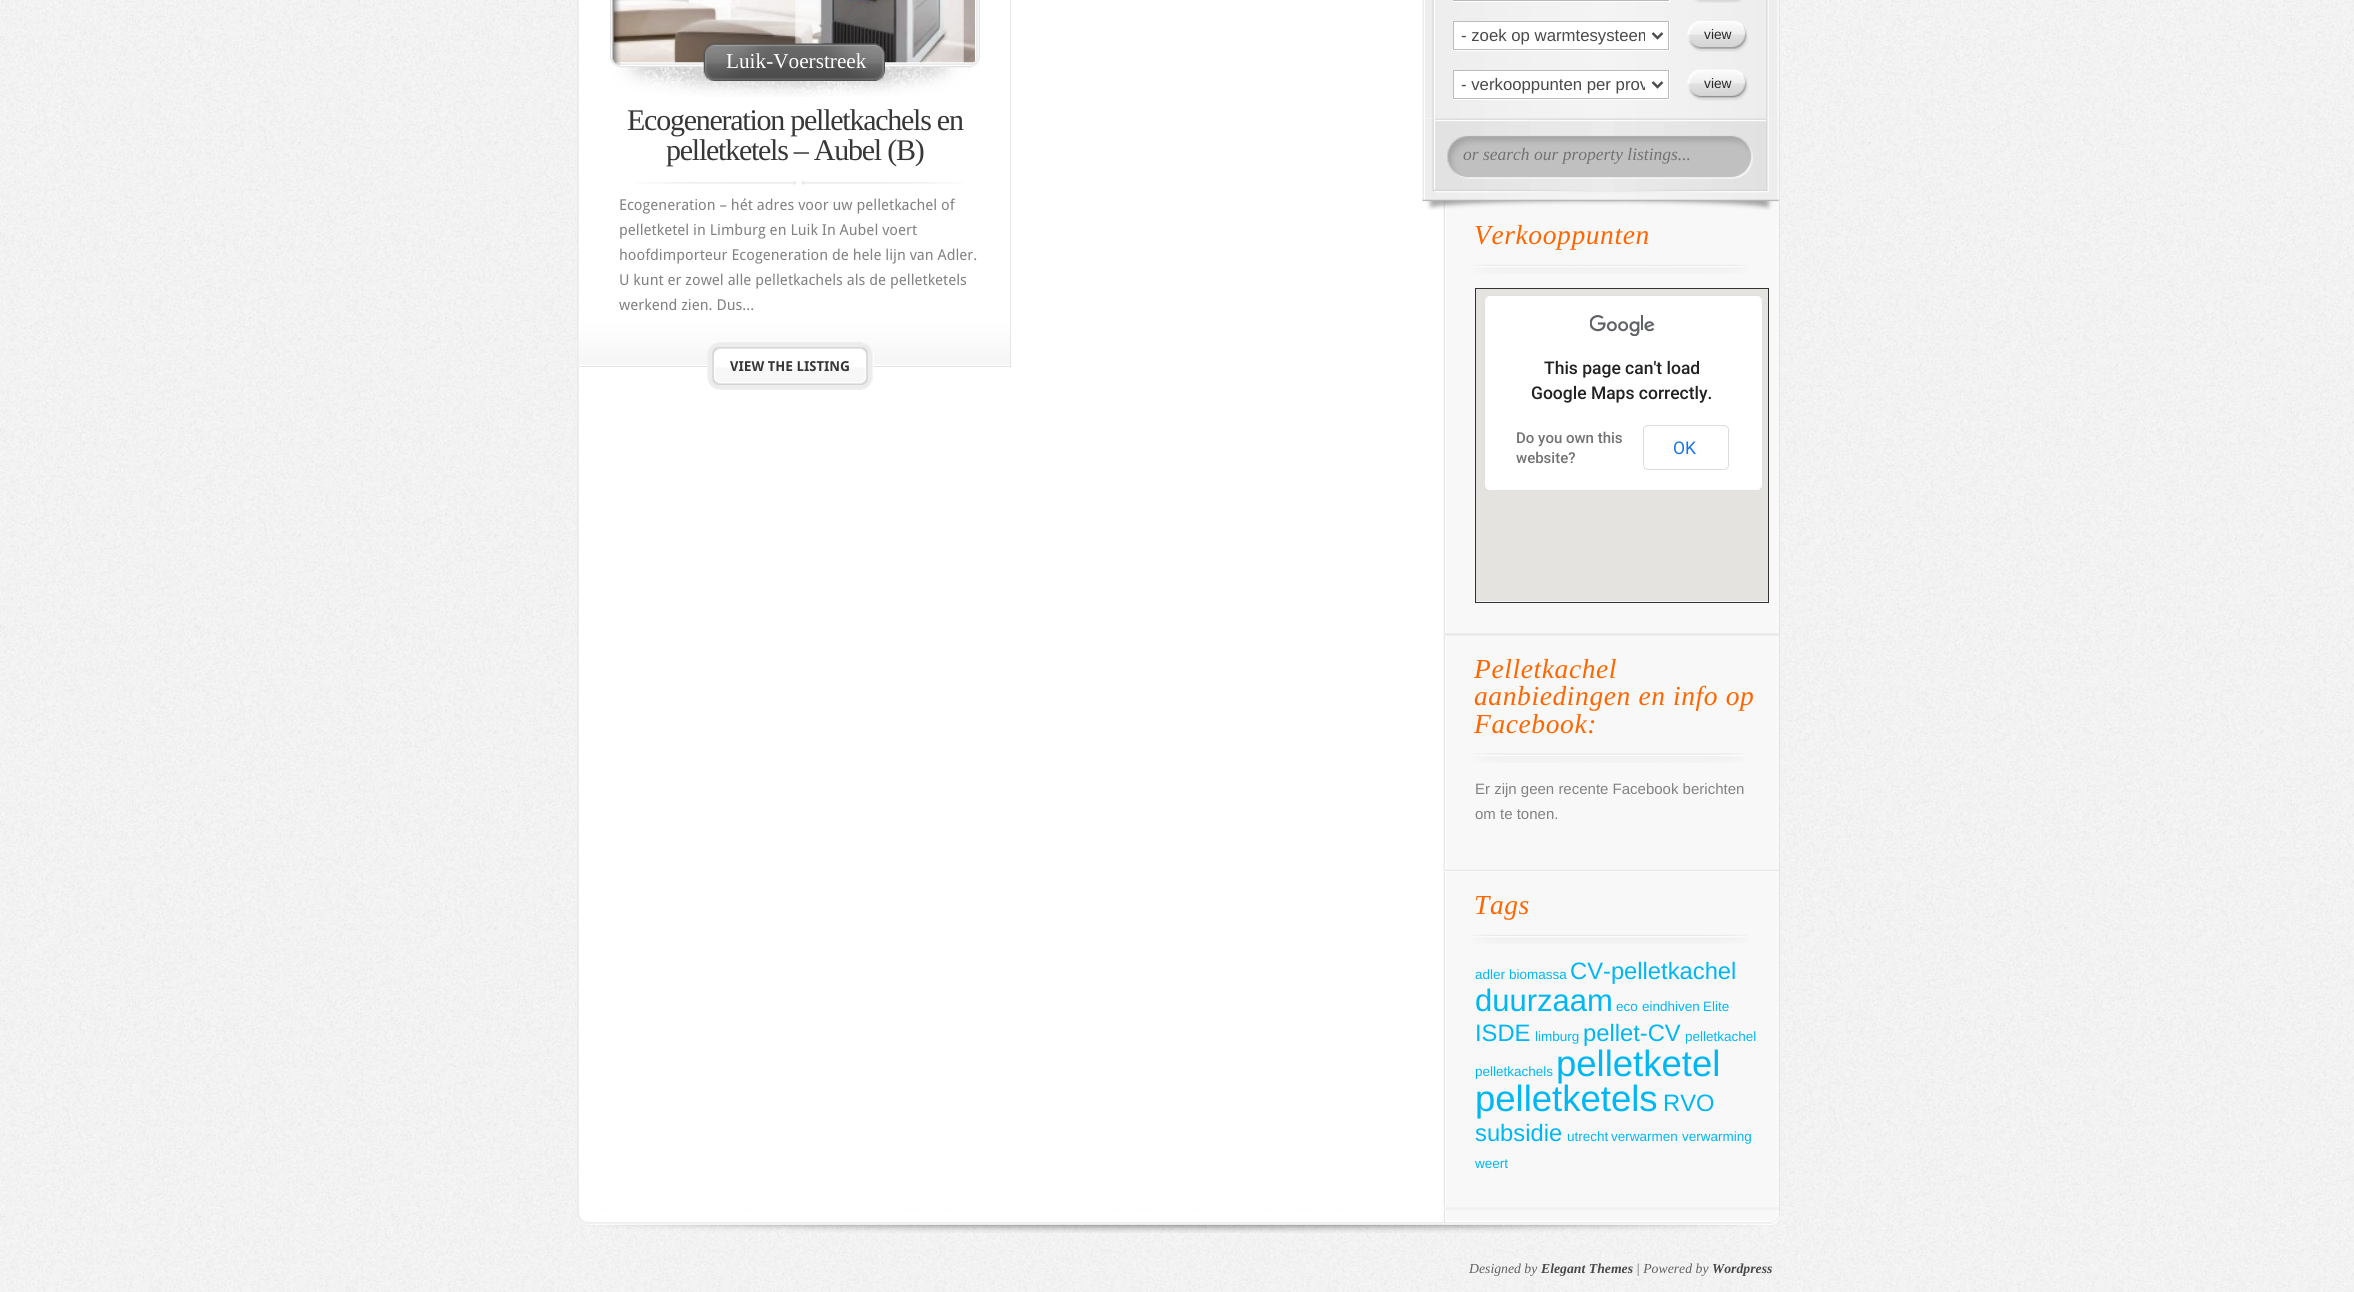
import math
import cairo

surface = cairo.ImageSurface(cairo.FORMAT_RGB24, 2354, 1292)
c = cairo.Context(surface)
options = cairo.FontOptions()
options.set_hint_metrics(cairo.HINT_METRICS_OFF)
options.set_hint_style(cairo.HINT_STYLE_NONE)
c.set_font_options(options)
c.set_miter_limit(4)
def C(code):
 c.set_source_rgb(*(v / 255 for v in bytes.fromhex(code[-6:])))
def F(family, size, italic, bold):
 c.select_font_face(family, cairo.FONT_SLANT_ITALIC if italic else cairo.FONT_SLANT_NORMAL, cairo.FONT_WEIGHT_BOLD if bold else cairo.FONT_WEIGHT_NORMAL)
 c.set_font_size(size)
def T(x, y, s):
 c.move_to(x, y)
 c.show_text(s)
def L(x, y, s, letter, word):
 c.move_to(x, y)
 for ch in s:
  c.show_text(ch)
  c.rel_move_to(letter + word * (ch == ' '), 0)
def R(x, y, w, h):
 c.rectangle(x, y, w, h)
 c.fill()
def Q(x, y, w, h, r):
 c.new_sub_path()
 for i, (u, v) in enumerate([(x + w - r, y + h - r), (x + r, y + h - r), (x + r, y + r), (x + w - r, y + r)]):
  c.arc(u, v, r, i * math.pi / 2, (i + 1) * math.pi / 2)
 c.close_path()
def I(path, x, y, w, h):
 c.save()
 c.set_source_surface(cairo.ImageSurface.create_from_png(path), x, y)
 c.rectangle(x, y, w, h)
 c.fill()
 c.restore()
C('ffffff')
c.paint()
I('1.png',0,0,2354,1292)
I('20.png',577,1209,1203,24)
I('2.png',577,0,1203,1210)
I('3.png',578,319,432,47)
C('e5e5e5')
R(1010,0,1,368)
R(579,366,432,1)
I('5.png',613,0,362,63)
I('4.png',610,0,370,97)
I('6.png',703,43,174,38)
I('7.png',824,43,61,38)
F('Liberation Serif',21.25,0,0)
C('ffffff')
T(726,68,'Luik-Voerstreek')
F('Liberation Serif',30,0,0)
C('373737')
L(627,130,'Ecogeneration pelletkachels en',-1.25,0)
L(666,160,'pelletketels – Aubel (B)',-1.25,0)
I('8.png',635,181,329,4)
F('Droid Sans',15,0,0)
C('828282')
T(619,210,'Ecogeneration – hét adres voor uw pelletkachel of')
T(619,235,'pelletketel in Limburg en Luik In Aubel voert')
T(619,260,'hoofdimporteur Ecogeneration de hele lijn van Adler.')
T(619,285,'U kunt er zowel alle pelletkachels als de pelletketels')
T(619,310,'werkend zien. Dus...')
I('9.png',858,342,16,48)
I('10.png',707,342,154,48)
F('Droid Sans',13.75,0,1)
C('373737')
T(730,371,'VIEW THE LISTING')
I('11.png',1422,0,356,119)
C('ffffff')
R(1669,0,1,3)
R(1453,1,217,1)
c.rectangle(1453.5,-.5,215,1)
C('bbbbbb')
c.set_line_width(1)
c.stroke()
I('12.png',1694,0,48,3)
C('ffffff')
R(1669,21,1,30)
R(1453,50,217,1)
c.rectangle(1453.5,21.5,215,28)
c.fill_preserve()
C('bbbbbb')
c.stroke()
c.new_path()
c.move_to(1652.5,33)
c.line_to(1657.5,38)
c.line_to(1662.5,33)
C('4e4e4e')
c.set_line_width(2.5)
c.stroke()
c.save()
c.rectangle(1461,25,184,21)
c.clip()
F('Liberation Sans',16.75,0,0)
C('494949')
T(1461,41,'- zoek op warmtesysteem')
c.restore()
I('13.png',1687,21,61,31)
F('Liberation Sans',13.75,0,0)
C('282828')
T(1704,39,'view')
C('ffffff')
R(1669,70,1,30)
R(1453,99,217,1)
c.rectangle(1453.5,70.5,215,28)
c.fill_preserve()
C('bbbbbb')
c.set_line_width(1)
c.stroke()
c.new_path()
c.move_to(1652.5,82)
c.line_to(1657.5,87)
c.line_to(1662.5,82)
C('4e4e4e')
c.set_line_width(2.5)
c.stroke()
c.save()
c.rectangle(1461,74,184,21)
c.clip()
F('Liberation Sans',16.75,0,0)
C('494949')
T(1461,90,'- verkooppunten per prov')
c.restore()
I('14.png',1687,69,61,32)
C('282828')
T(1704,88,'view')
I('15.png',1422,118,357,92)
F('Liberation Serif',17.5,1,0)
C('737272')
T(1463,160,'or search our property listings...')
C('ebebeb')
R(1444,633,335,3)
I('16.png',1472,264,276,10)
F('Liberation Serif',27.5,1,0)
C('ff6600')
L(1474,244,'Verkooppunten',.6,0)
c.rectangle(1475.5,288.5,293,314)
C('333333')
c.set_line_width(1)
c.stroke()
C('e5e3df')
R(1476,289,292,312)
C('ffffff')
Q(1484,295,279,196,6)
c.fill()
Q(1484.5,295.5,278,195,5.5)
c.set_source_rgba(0,0,0,0.12)
c.stroke()
I('17.png',1590,315,65,21)
F('Roboto Medium',17.5,0,0)
C('212121')
T(1544,374,'This page can\'t load')
T(1531,399,'Google Maps correctly.')
F('Roboto Medium',15,0,0)
C('737272')
T(1516,443,'Do you own this')
T(1516,463,'website?')
Q(1643.5,425.5,85,44,4.5)
C('dadce0')
c.stroke()
F('Roboto',17.5,0,0)
C('1a73e8')
T(1673,454,'OK')
I('18.png',1443,869,336,4)
I('19.png',1473,753,271,10)
F('Liberation Serif',27.5,1,0)
C('ff6600')
L(1474,678,'Pelletkachel',.6,0)
L(1474,705,'aanbiedingen en info op',.6,0)
L(1474,733,'Facebook:',.6,0)
F('Liberation Sans',15,0,0)
C('828282')
T(1475,794,'Er zijn geen recente Facebook berichten')
T(1475,819,'om te tonen.')
C('f2f2f2')
R(1444,1207,335,3)
I('16.png',1472,934,276,10)
F('Liberation Serif',27.5,1,0)
C('ff6600')
L(1474,914,'Tags',.6,0)
F('Liberation Sans',13.5,0,0)
C('00b7f3')
T(1475,979,'adler')
T(1509,979,'biomassa')
F('Liberation Sans',23.75,0,0)
T(1570,979,'CV-pelletkachel')
F('Liberation Sans',31,0,0)
T(1475,1011,'duurzaam')
F('Liberation Sans',13.5,0,0)
T(1616,1011,'eco')
T(1642,1011,'eindhiven')
T(1703,1011,'Elite')
F('Liberation Sans',23.75,0,0)
T(1475,1041,'ISDE')
F('Liberation Sans',13.5,0,0)
T(1535,1041,'limburg')
F('Liberation Sans',23.75,0,0)
T(1583,1041,'pellet-CV')
F('Liberation Sans',13.5,0,0)
T(1685,1041,'pelletkachel')
T(1475,1076,'pelletkachels')
F('Liberation Sans',36.5,0,0)
T(1556,1076,'pelletketel')
T(1475,1111,'pelletketels')
F('Liberation Sans',23.75,0,0)
T(1663,1111,'RVO')
T(1475,1141,'subsidie')
F('Liberation Sans',13.5,0,0)
T(1567,1141,'utrecht')
T(1611,1141,'verwarmen')
T(1682,1141,'verwarming')
T(1475,1168,'weert')
F('Liberation Serif',13.75,1,0)
C('616060')
T(1469,1273,'Designed by')
F('Liberation Serif',13.75,1,1)
C('494949')
T(1541,1273,'Elegant Themes')
F('Liberation Serif',13.75,1,0)
C('616060')
T(1636,1273,'| Powered by')
F('Liberation Serif',13.75,1,1)
C('494949')
T(1712,1273,'Wordpress')
surface.write_to_png('o.png')
